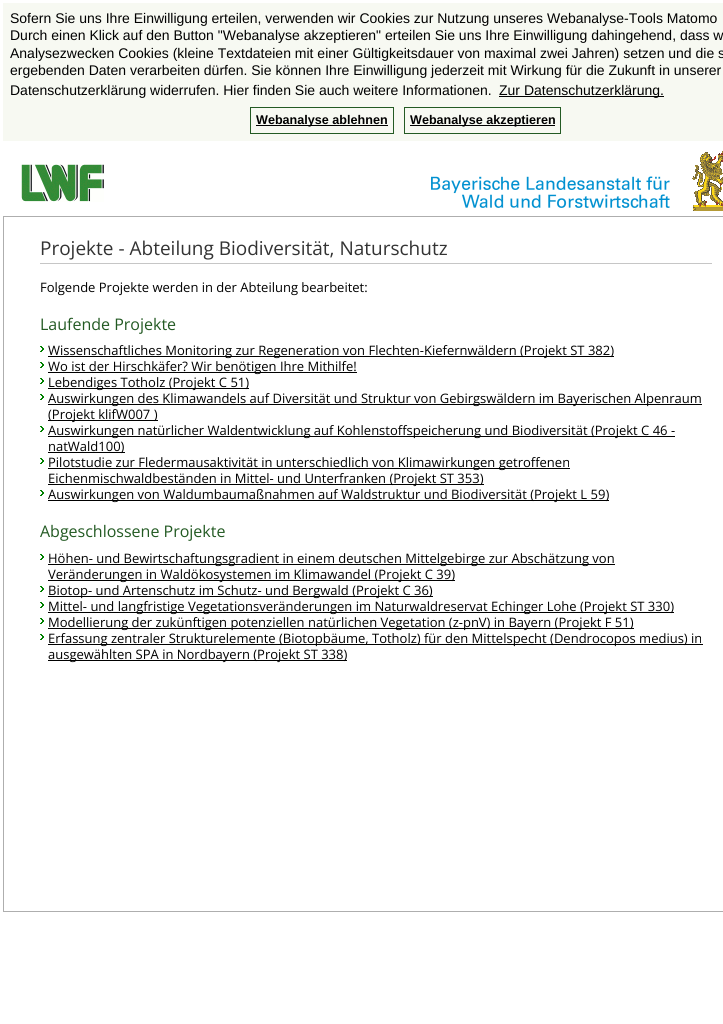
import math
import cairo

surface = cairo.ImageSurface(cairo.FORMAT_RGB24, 723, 1024)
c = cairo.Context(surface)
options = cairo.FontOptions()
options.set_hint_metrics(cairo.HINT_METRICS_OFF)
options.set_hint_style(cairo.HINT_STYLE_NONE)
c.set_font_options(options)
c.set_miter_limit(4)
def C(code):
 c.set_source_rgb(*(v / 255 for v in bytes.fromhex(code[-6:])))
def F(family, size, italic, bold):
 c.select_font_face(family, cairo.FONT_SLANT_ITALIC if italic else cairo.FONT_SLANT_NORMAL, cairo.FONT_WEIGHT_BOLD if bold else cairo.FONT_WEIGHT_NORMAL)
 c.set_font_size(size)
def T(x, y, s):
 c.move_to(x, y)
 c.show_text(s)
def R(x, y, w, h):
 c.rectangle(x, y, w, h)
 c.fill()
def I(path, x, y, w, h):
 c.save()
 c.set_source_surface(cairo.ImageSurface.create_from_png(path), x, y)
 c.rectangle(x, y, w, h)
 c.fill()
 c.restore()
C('ffffff')
c.paint()
C('f7f9f2')
R(3,3,720,138)
F('Liberation Sans',14,0,0)
C('000000')
T(10,23,'Sofern Sie uns Ihre Einwilligung erteilen, verwenden wir Cookies zur Nutzung unseres Webanalyse-Tools Matomo')
T(10,40,'Durch einen Klick auf den Button "Webanalyse akzeptieren" erteilen Sie uns Ihre Einwilligung dahingehend, dass w')
T(10,58,'Analysezwecken Cookies (kleine Textdateien mit einer Gültigkeitsdauer von maximal zwei Jahren) setzen und die s')
T(10,75,'ergebenden Daten verarbeiten dürfen. Sie können Ihre Einwilligung jederzeit mit Wirkung für die Zukunft in unserer')
T(10,95,'Datenschutzerklärung widerrufen. Hier finden Sie auch weitere Informationen.')
R(499,96,165,1)
T(499,95,'Zur Datenschutzerklärung.')
c.rectangle(250.5,107.5,143,26)
C('235a23')
c.set_line_width(1)
c.stroke()
C('000000')
R(256,125,132,1)
F('Liberation Sans',12.6,0,1)
T(256,124,'Webanalyse ablehnen')
c.rectangle(404.5,107.5,156,26)
C('235a23')
c.stroke()
C('000000')
R(410,125,145,1)
T(410,124,'Webanalyse akzeptieren')
I('1.png',21,164,83,38)
I('2.png',431,176,239,32)
I('3.png',692,151,31,60)
C('aeaeae')
R(3,216,720,1)
R(3,911,720,1)
R(3,216,1,696)
C('c6c6c6')
R(40,263,672,1)
F('Open Sans',19,0,0)
C('333333')
T(40,255,'Projekte - Abteilung Biodiversität, Naturschutz')
F('Open Sans',13,0,0)
C('000000')
T(40,292,'Folgende Projekte werden in der Abteilung bearbeitet:')
F('Open Sans',16,0,0)
C('235a23')
T(40,330,'Laufende Projekte')
I('4.png',40,346,4,6)
C('000000')
R(48,356,566,1)
F('Open Sans',13,0,0)
T(48,355,'Wissenschaftliches Monitoring zur Regeneration von Flechten-Kiefernwäldern (Projekt ST 382)')
I('4.png',40,362,4,6)
R(48,372,309,1)
T(48,371,'Wo ist der Hirschkäfer? Wir benötigen Ihre Mithilfe!')
I('4.png',40,378,4,6)
R(48,388,201,1)
T(48,387,'Lebendiges Totholz (Projekt C 51)')
I('4.png',40,394,4,6)
R(48,404,654,1)
T(48,403,'Auswirkungen des Klimawandels auf Diversität und Struktur von Gebirgswäldern im Bayerischen Alpenraum')
R(48,420,110,1)
T(48,419,'(Projekt klifW007 )')
I('4.png',40,426,4,6)
R(48,436,627,1)
T(48,435,'Auswirkungen natürlicher Waldentwicklung auf Kohlenstoffspeicherung und Biodiversität (Projekt C 46 -')
R(48,452,77,1)
T(48,451,'natWald100)')
I('4.png',40,458,4,6)
R(48,468,522,1)
T(48,467,'Pilotstudie zur Fledermausaktivität in unterschiedlich von Klimawirkungen getroffenen')
R(48,484,436,1)
T(48,483,'Eichenmischwaldbeständen in Mittel- und Unterfranken (Projekt ST 353)')
I('4.png',40,490,4,6)
R(48,500,561,1)
T(48,499,'Auswirkungen von Waldumbaumaßnahmen auf Waldstruktur und Biodiversität (Projekt L 59)')
F('Open Sans',16,0,0)
C('235a23')
T(40,537,'Abgeschlossene Projekte')
I('4.png',40,554,4,6)
C('000000')
R(48,564,567,1)
F('Open Sans',13,0,0)
T(48,563,'Höhen- und Bewirtschaftungsgradient in einem deutschen Mittelgebirge zur Abschätzung von')
R(48,580,407,1)
T(48,579,'Veränderungen in Waldökosystemen im Klimawandel (Projekt C 39)')
I('4.png',40,586,4,6)
R(48,596,385,1)
T(48,595,'Biotop- und Artenschutz im Schutz- und Bergwald (Projekt C 36)')
I('4.png',40,602,4,6)
R(48,612,626,1)
T(48,611,'Mittel- und langfristige Vegetationsveränderungen im Naturwaldreservat Echinger Lohe (Projekt ST 330)')
I('4.png',40,618,4,6)
R(48,628,586,1)
T(48,627,'Modellierung der zukünftigen potenziellen natürlichen Vegetation (z-pnV) in Bayern (Projekt F 51)')
I('4.png',40,634,4,6)
R(48,644,655,1)
T(48,643,'Erfassung zentraler Strukturelemente (Biotopbäume, Totholz) für den Mittelspecht (Dendrocopos medius) in')
R(48,660,299,1)
T(48,659,'ausgewählten SPA in Nordbayern (Projekt ST 338)')
surface.write_to_png('o.png')
